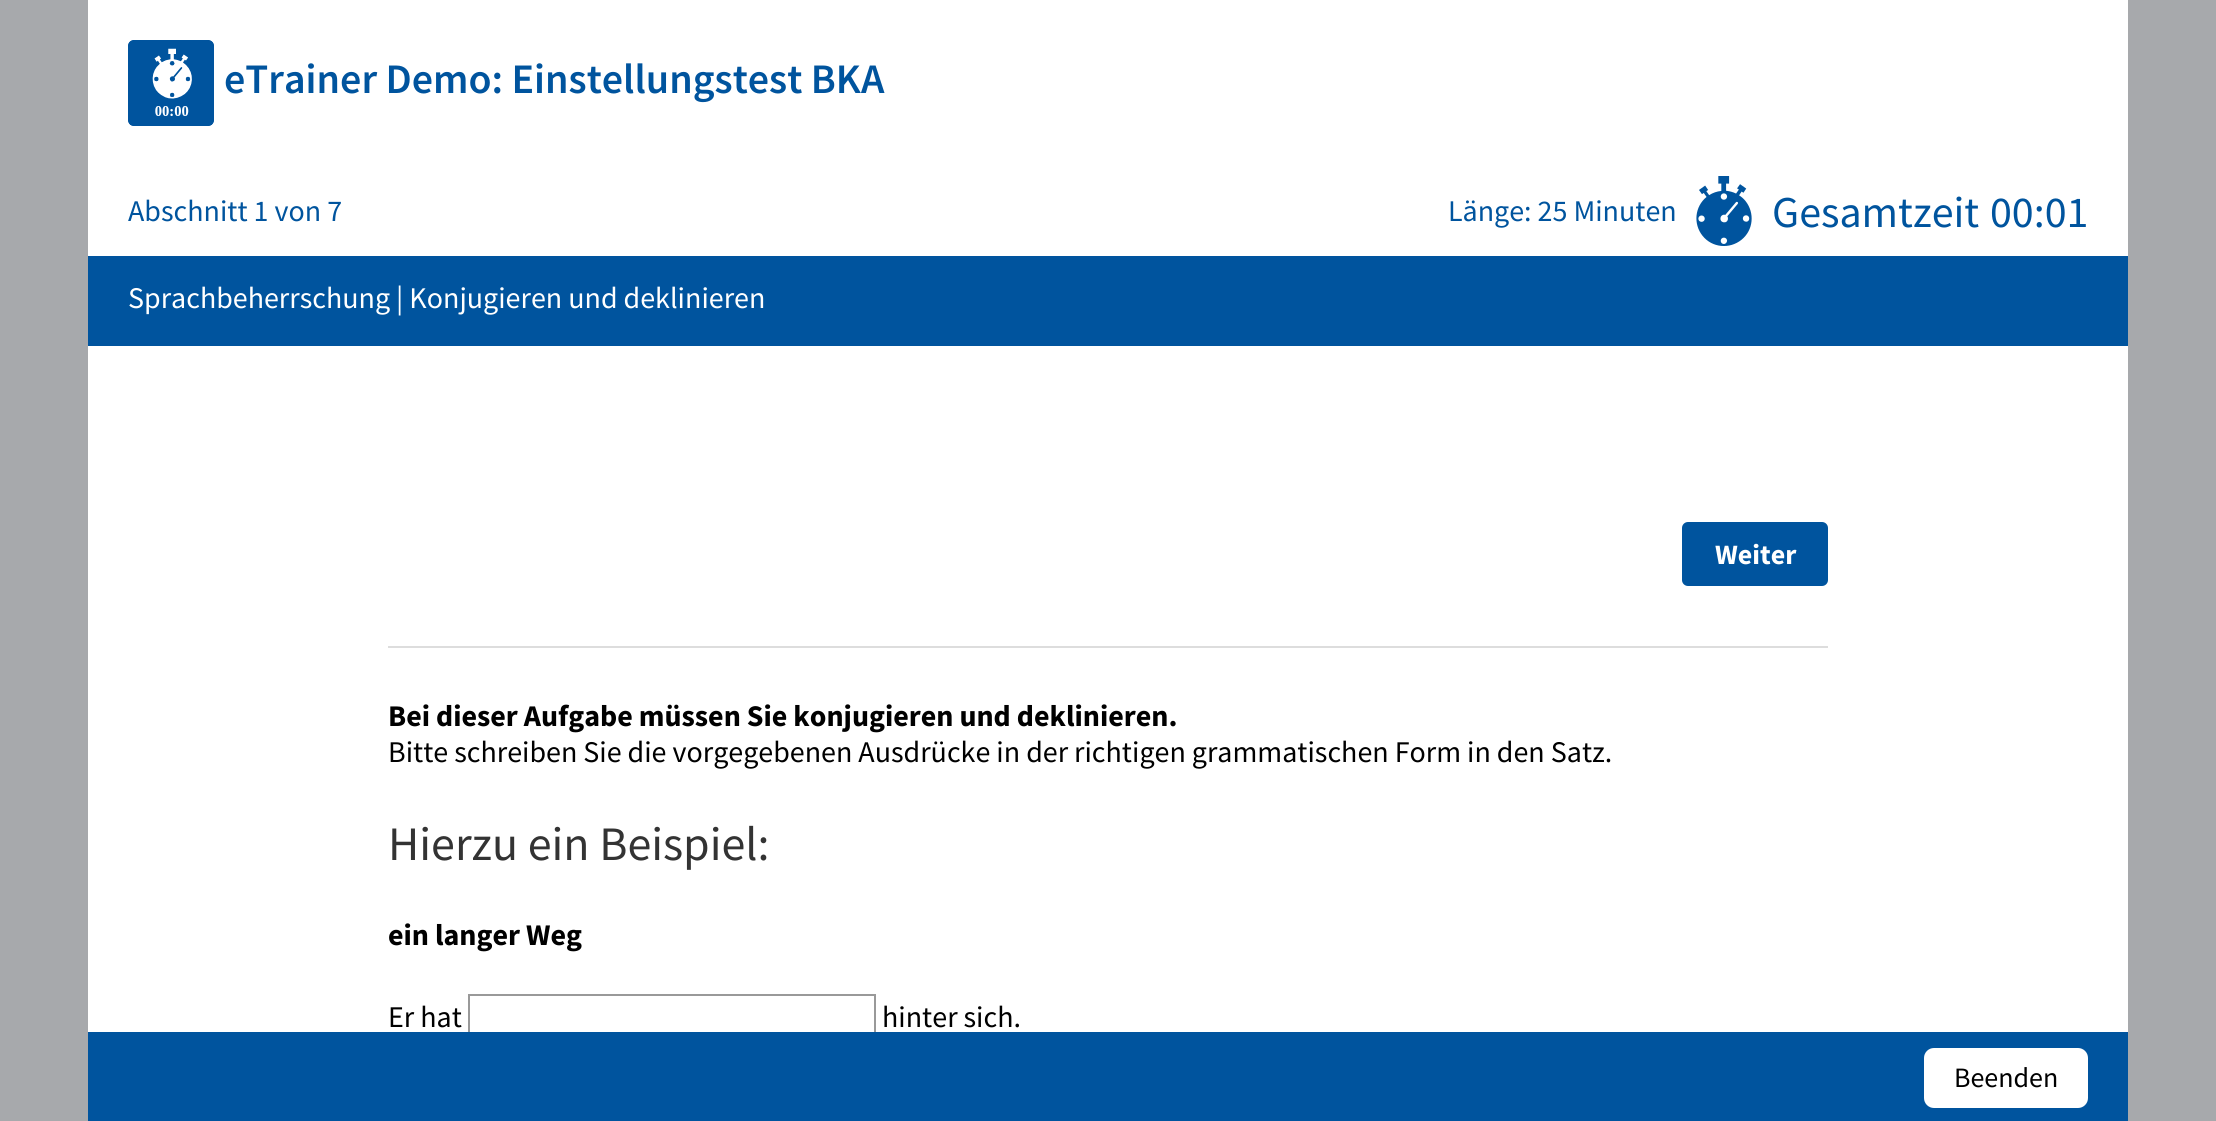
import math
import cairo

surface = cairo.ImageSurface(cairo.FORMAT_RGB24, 2216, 1121)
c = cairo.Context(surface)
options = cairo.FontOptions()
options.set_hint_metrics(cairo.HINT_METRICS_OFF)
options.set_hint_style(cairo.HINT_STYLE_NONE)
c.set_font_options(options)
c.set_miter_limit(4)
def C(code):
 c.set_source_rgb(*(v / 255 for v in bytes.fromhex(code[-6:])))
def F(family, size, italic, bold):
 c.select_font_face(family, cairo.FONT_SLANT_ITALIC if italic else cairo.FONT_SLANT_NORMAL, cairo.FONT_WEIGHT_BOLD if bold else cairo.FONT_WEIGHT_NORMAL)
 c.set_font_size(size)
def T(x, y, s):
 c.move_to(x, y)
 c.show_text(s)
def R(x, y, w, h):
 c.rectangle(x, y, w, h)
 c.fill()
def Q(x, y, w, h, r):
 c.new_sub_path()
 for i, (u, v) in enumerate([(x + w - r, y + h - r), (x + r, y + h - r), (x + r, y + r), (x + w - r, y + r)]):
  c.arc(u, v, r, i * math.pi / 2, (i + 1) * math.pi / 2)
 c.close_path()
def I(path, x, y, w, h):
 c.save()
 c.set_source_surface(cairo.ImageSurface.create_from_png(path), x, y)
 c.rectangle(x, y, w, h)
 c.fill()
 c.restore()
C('a7a9ac')
c.paint()
C('ffffff')
R(88,0,2040,1032)
C('00549e')
Q(128,40,86,86,6)
c.fill()
I('1.png',128,40,86,86)
F('Source Sans Pro SemiBold',42,0,0)
T(224,93,'eTrainer Demo: Einstellungstest BKA')
F('Source Sans Pro',30,0,0)
T(128,221,'Abschnitt 1 von 7')
T(1448,221,'Länge: 25 Minuten')
I('2.png',1696,176,56,70)
F('Source Sans Pro',44,0,0)
T(1772,227,'Gesamtzeit')
T(1990,227,'00:01')
R(88,256,2040,90)
F('Source Sans Pro',30,0,0)
C('ffffff')
T(128,308,'Sprachbeherrschung | Konjugieren und deklinieren')
C('dddddd')
R(388,646,1440,2)
C('00549e')
Q(1683,523,144,62,5)
c.fill_preserve()
c.stroke()
F('Source Sans Pro',28,0,1)
C('ffffff')
T(1715,564,'Weiter')
F('Source Sans Pro',30,0,1)
C('000000')
T(388,726,'Bei dieser Aufgabe müssen Sie konjugieren und deklinieren.')
F('Source Sans Pro',30,0,0)
T(388,762,'Bitte schreiben Sie die vorgegebenen Ausdrücke in der richtigen grammatischen Form in den Satz.')
F('Source Sans Pro',48,0,0)
C('333333')
T(388,860,'Hierzu ein Beispiel:')
F('Source Sans Pro',30,0,1)
C('000000')
T(388,945,'ein langer Weg')
F('Source Sans Pro',30,0,0)
T(388,1027,'Er hat')
C('00549e')
R(88,1032,2040,89)
c.save()
c.rectangle(88,346,2040,686)
c.clip()
c.rectangle(469,995,406,44)
C('999999')
c.stroke()
c.restore()
C('000000')
T(882,1027,'hinter sich.')
C('ffffff')
Q(1924,1048,164,60,10)
c.fill()
F('Source Sans Pro',28,0,0)
C('000000')
T(1954,1087,'Beenden')
surface.write_to_png('o.png')
